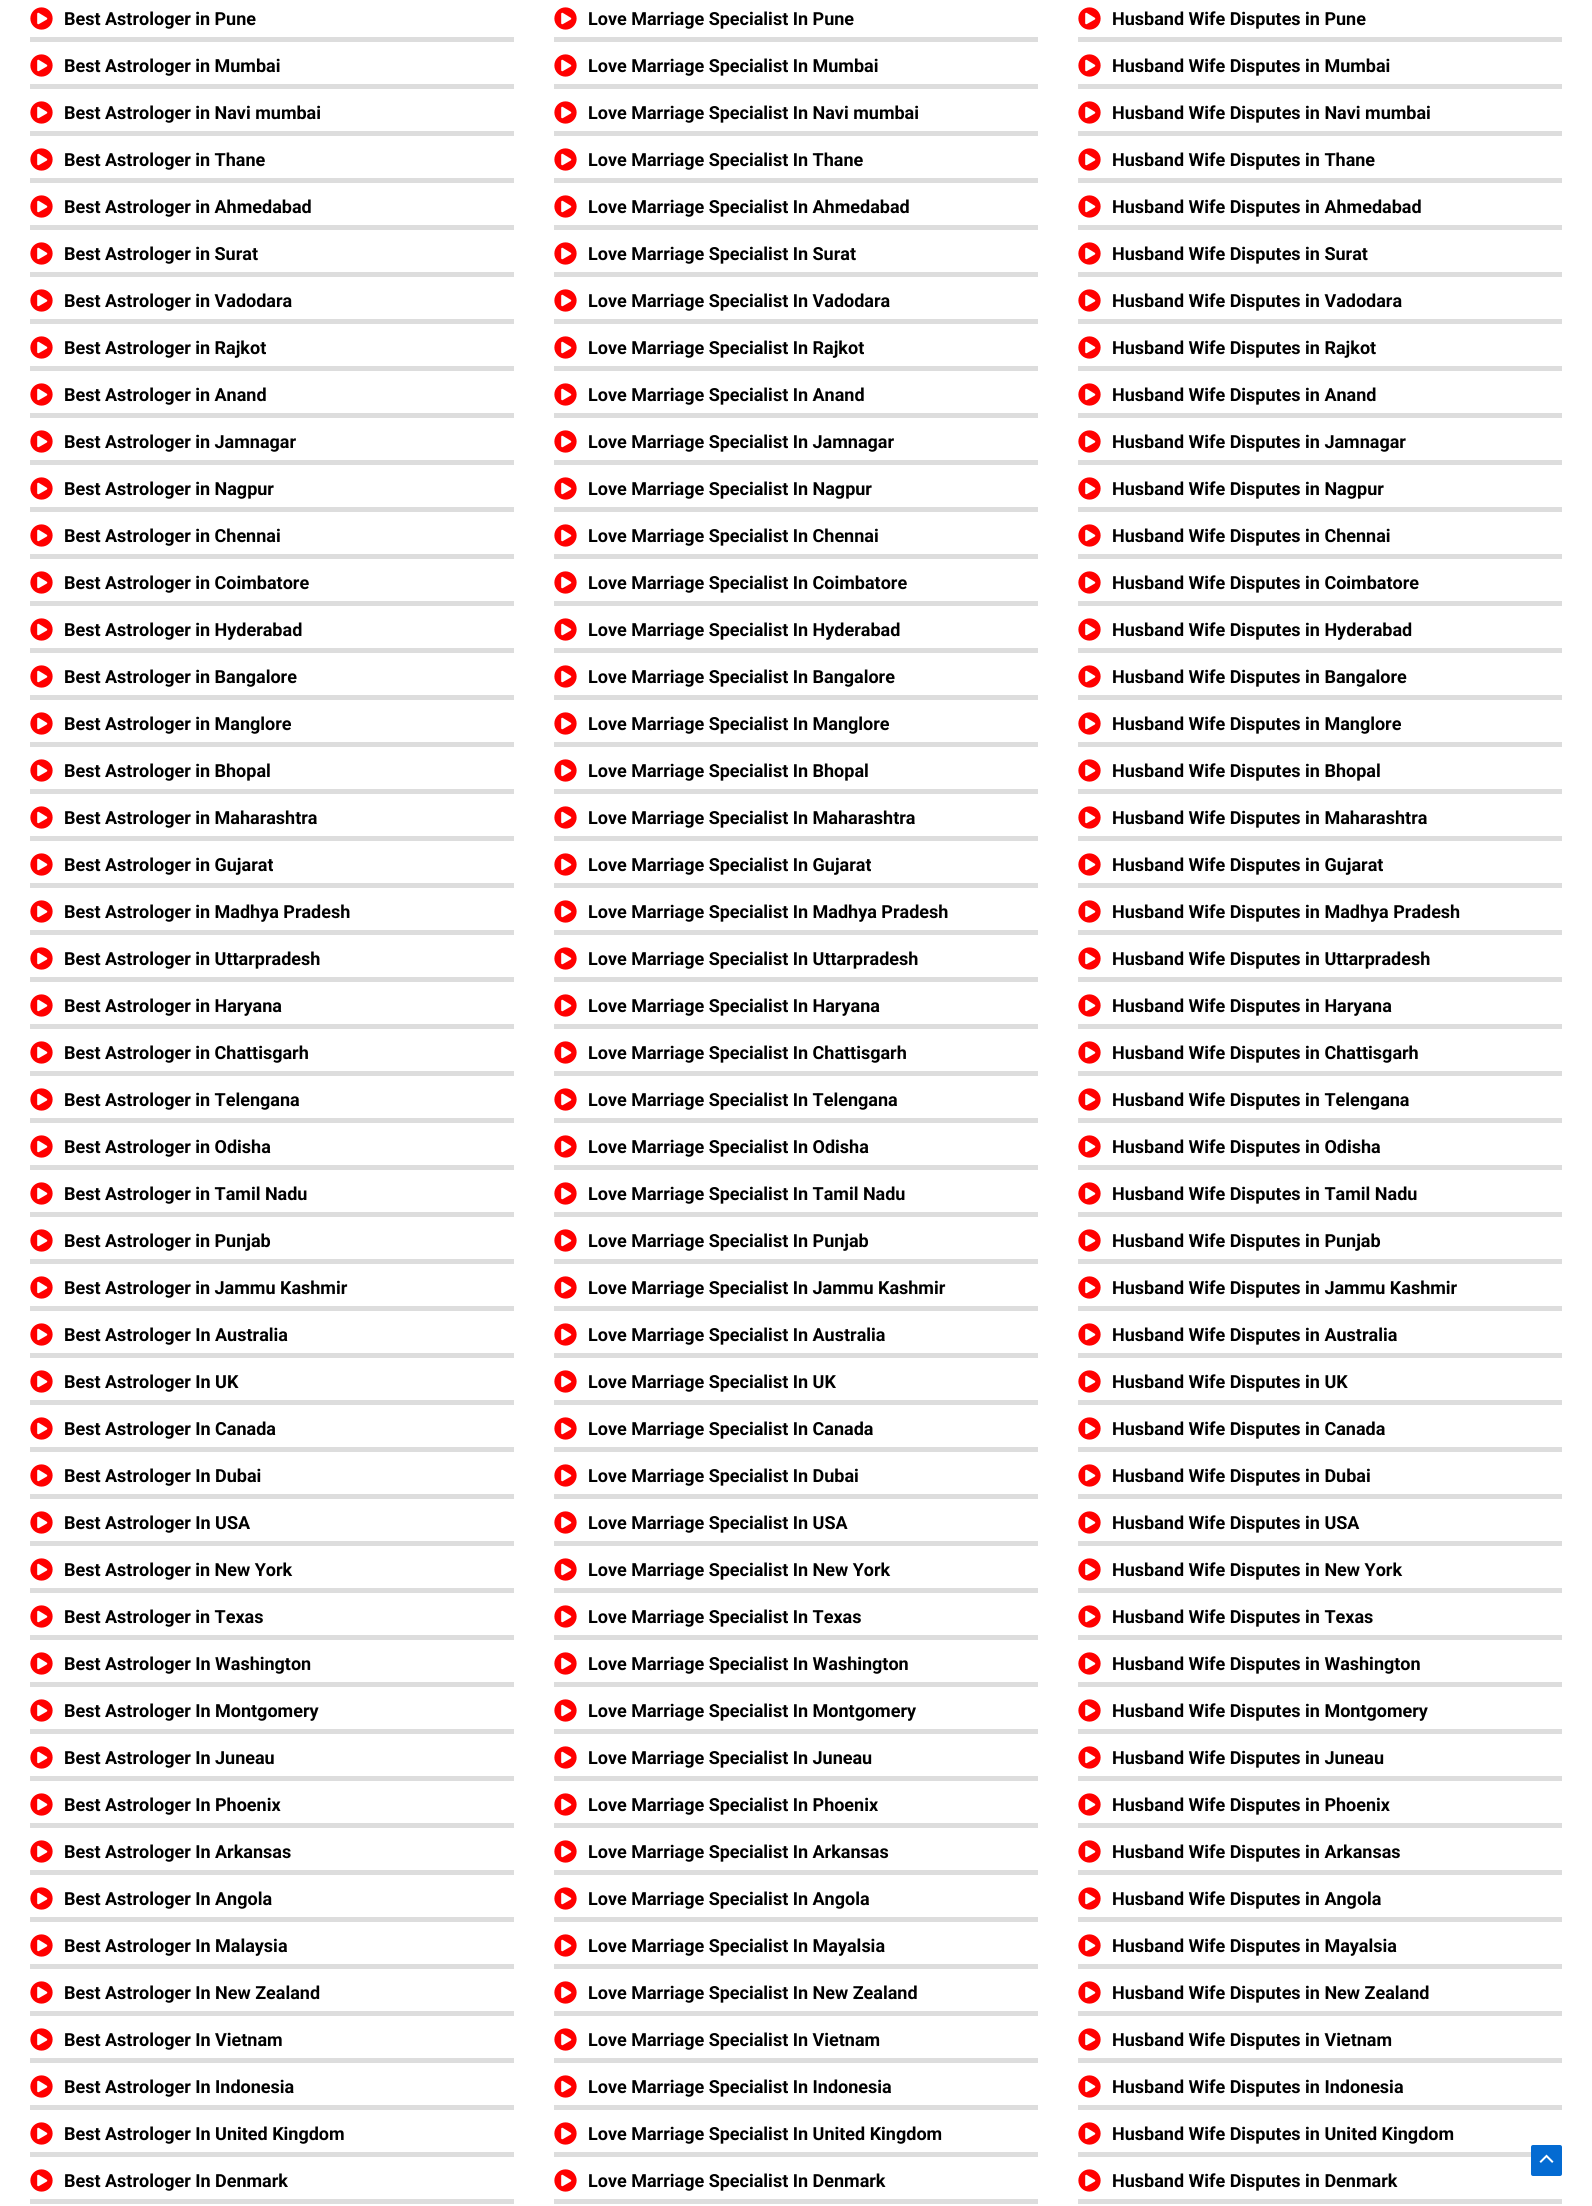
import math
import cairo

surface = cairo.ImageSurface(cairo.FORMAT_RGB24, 1592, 2206)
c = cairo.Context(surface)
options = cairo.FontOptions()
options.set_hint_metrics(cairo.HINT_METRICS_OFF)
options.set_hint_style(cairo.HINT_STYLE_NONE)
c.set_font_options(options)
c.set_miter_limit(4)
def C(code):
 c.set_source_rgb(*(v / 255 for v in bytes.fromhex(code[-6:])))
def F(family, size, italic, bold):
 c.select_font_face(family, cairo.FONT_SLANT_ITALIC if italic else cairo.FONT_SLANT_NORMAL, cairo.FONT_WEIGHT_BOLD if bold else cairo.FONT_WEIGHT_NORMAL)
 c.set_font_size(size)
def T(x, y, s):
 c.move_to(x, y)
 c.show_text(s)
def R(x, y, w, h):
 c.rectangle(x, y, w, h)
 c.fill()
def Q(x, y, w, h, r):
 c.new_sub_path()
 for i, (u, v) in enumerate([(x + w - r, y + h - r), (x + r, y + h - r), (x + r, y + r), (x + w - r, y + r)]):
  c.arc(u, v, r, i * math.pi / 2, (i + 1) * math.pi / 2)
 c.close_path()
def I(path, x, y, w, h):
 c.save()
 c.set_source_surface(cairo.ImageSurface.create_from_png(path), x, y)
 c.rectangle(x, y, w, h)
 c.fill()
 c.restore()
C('ffffff')
c.paint()
I('1.png',30,7,23,23)
F('Roboto',18,0,1)
C('000000')
T(64,25,'Best Astrologer in Pune')
C('dddddd')
R(30,37,484,5)
I('1.png',30,54,23,23)
C('000000')
T(64,72,'Best Astrologer in Mumbai')
C('dddddd')
R(30,84,484,5)
I('1.png',30,101,23,23)
C('000000')
T(64,119,'Best Astrologer in Navi mumbai')
C('dddddd')
R(30,131,484,5)
I('1.png',30,148,23,23)
C('000000')
T(64,166,'Best Astrologer in Thane')
C('dddddd')
R(30,178,484,5)
I('1.png',30,195,23,23)
C('000000')
T(64,213,'Best Astrologer in Ahmedabad')
C('dddddd')
R(30,225,484,5)
I('1.png',30,242,23,23)
C('000000')
T(64,260,'Best Astrologer in Surat')
C('dddddd')
R(30,272,484,5)
I('1.png',30,289,23,23)
C('000000')
T(64,307,'Best Astrologer in Vadodara')
C('dddddd')
R(30,319,484,5)
I('1.png',30,336,23,23)
C('000000')
T(64,354,'Best Astrologer in Rajkot')
C('dddddd')
R(30,366,484,5)
I('1.png',30,383,23,23)
C('000000')
T(64,401,'Best Astrologer in Anand')
C('dddddd')
R(30,413,484,5)
I('1.png',30,430,23,23)
C('000000')
T(64,448,'Best Astrologer in Jamnagar')
C('dddddd')
R(30,460,484,5)
I('1.png',30,477,23,23)
C('000000')
T(64,495,'Best Astrologer in Nagpur')
C('dddddd')
R(30,507,484,5)
I('1.png',30,524,23,23)
C('000000')
T(64,542,'Best Astrologer in Chennai')
C('dddddd')
R(30,554,484,5)
I('1.png',30,571,23,23)
C('000000')
T(64,589,'Best Astrologer in Coimbatore')
C('dddddd')
R(30,601,484,5)
I('1.png',30,618,23,23)
C('000000')
T(64,636,'Best Astrologer in Hyderabad')
C('dddddd')
R(30,648,484,5)
I('1.png',30,665,23,23)
C('000000')
T(64,683,'Best Astrologer in Bangalore')
C('dddddd')
R(30,695,484,5)
I('1.png',30,712,23,23)
C('000000')
T(64,730,'Best Astrologer in Manglore')
C('dddddd')
R(30,742,484,5)
I('1.png',30,759,23,23)
C('000000')
T(64,777,'Best Astrologer in Bhopal')
C('dddddd')
R(30,789,484,5)
I('1.png',30,806,23,23)
C('000000')
T(64,824,'Best Astrologer in Maharashtra')
C('dddddd')
R(30,836,484,5)
I('1.png',30,853,23,23)
C('000000')
T(64,871,'Best Astrologer in Gujarat')
C('dddddd')
R(30,883,484,5)
I('1.png',30,900,23,23)
C('000000')
T(64,918,'Best Astrologer in Madhya Pradesh')
C('dddddd')
R(30,930,484,5)
I('1.png',30,947,23,23)
C('000000')
T(64,965,'Best Astrologer in Uttarpradesh')
C('dddddd')
R(30,977,484,5)
I('1.png',30,994,23,23)
C('000000')
T(64,1012,'Best Astrologer in Haryana')
C('dddddd')
R(30,1024,484,5)
I('1.png',30,1041,23,23)
C('000000')
T(64,1059,'Best Astrologer in Chattisgarh')
C('dddddd')
R(30,1071,484,5)
I('1.png',30,1088,23,23)
C('000000')
T(64,1106,'Best Astrologer in Telengana')
C('dddddd')
R(30,1118,484,5)
I('1.png',30,1135,23,23)
C('000000')
T(64,1153,'Best Astrologer in Odisha')
C('dddddd')
R(30,1165,484,5)
I('1.png',30,1182,23,23)
C('000000')
T(64,1200,'Best Astrologer in Tamil Nadu')
C('dddddd')
R(30,1212,484,5)
I('1.png',30,1229,23,23)
C('000000')
T(64,1247,'Best Astrologer in Punjab')
C('dddddd')
R(30,1259,484,5)
I('1.png',30,1276,23,23)
C('000000')
T(64,1294,'Best Astrologer in Jammu Kashmir')
C('dddddd')
R(30,1306,484,5)
I('1.png',30,1323,23,23)
C('000000')
T(64,1341,'Best Astrologer In Australia')
C('dddddd')
R(30,1353,484,5)
I('1.png',30,1370,23,23)
C('000000')
T(64,1388,'Best Astrologer In UK')
C('dddddd')
R(30,1400,484,5)
I('1.png',30,1417,23,23)
C('000000')
T(64,1435,'Best Astrologer In Canada')
C('dddddd')
R(30,1447,484,5)
I('1.png',30,1464,23,23)
C('000000')
T(64,1482,'Best Astrologer In Dubai')
C('dddddd')
R(30,1494,484,5)
I('1.png',30,1511,23,23)
C('000000')
T(64,1529,'Best Astrologer In USA')
C('dddddd')
R(30,1541,484,5)
I('1.png',30,1558,23,23)
C('000000')
T(64,1576,'Best Astrologer in New York')
C('dddddd')
R(30,1588,484,5)
I('1.png',30,1605,23,23)
C('000000')
T(64,1623,'Best Astrologer in Texas')
C('dddddd')
R(30,1635,484,5)
I('1.png',30,1652,23,23)
C('000000')
T(64,1670,'Best Astrologer In Washington')
C('dddddd')
R(30,1682,484,5)
I('1.png',30,1699,23,23)
C('000000')
T(64,1717,'Best Astrologer In Montgomery')
C('dddddd')
R(30,1729,484,5)
I('1.png',30,1746,23,23)
C('000000')
T(64,1764,'Best Astrologer In Juneau')
C('dddddd')
R(30,1776,484,5)
I('1.png',30,1793,23,23)
C('000000')
T(64,1811,'Best Astrologer In Phoenix')
C('dddddd')
R(30,1823,484,5)
I('1.png',30,1840,23,23)
C('000000')
T(64,1858,'Best Astrologer In Arkansas')
C('dddddd')
R(30,1870,484,5)
I('1.png',30,1887,23,23)
C('000000')
T(64,1905,'Best Astrologer In Angola')
C('dddddd')
R(30,1917,484,5)
I('1.png',30,1934,23,23)
C('000000')
T(64,1952,'Best Astrologer In Malaysia')
C('dddddd')
R(30,1964,484,5)
I('1.png',30,1981,23,23)
C('000000')
T(64,1999,'Best Astrologer In New Zealand')
C('dddddd')
R(30,2011,484,5)
I('1.png',30,2028,23,23)
C('000000')
T(64,2046,'Best Astrologer In Vietnam')
C('dddddd')
R(30,2058,484,5)
I('1.png',30,2075,23,23)
C('000000')
T(64,2093,'Best Astrologer In Indonesia')
C('dddddd')
R(30,2105,484,5)
I('1.png',30,2122,23,23)
C('000000')
T(64,2140,'Best Astrologer In United Kingdom')
C('dddddd')
R(30,2152,484,5)
I('1.png',30,2169,23,23)
C('000000')
T(64,2187,'Best Astrologer In Denmark')
C('dddddd')
R(30,2199,484,5)
I('1.png',554,7,23,23)
C('000000')
T(588,25,'Love Marriage Specialist In Pune')
C('dddddd')
R(554,37,484,5)
I('1.png',554,54,23,23)
C('000000')
T(588,72,'Love Marriage Specialist In Mumbai')
C('dddddd')
R(554,84,484,5)
I('1.png',554,101,23,23)
C('000000')
T(588,119,'Love Marriage Specialist In Navi mumbai')
C('dddddd')
R(554,131,484,5)
I('1.png',554,148,23,23)
C('000000')
T(588,166,'Love Marriage Specialist In Thane')
C('dddddd')
R(554,178,484,5)
I('1.png',554,195,23,23)
C('000000')
T(588,213,'Love Marriage Specialist In Ahmedabad')
C('dddddd')
R(554,225,484,5)
I('1.png',554,242,23,23)
C('000000')
T(588,260,'Love Marriage Specialist In Surat')
C('dddddd')
R(554,272,484,5)
I('1.png',554,289,23,23)
C('000000')
T(588,307,'Love Marriage Specialist In Vadodara')
C('dddddd')
R(554,319,484,5)
I('1.png',554,336,23,23)
C('000000')
T(588,354,'Love Marriage Specialist In Rajkot')
C('dddddd')
R(554,366,484,5)
I('1.png',554,383,23,23)
C('000000')
T(588,401,'Love Marriage Specialist In Anand')
C('dddddd')
R(554,413,484,5)
I('1.png',554,430,23,23)
C('000000')
T(588,448,'Love Marriage Specialist In Jamnagar')
C('dddddd')
R(554,460,484,5)
I('1.png',554,477,23,23)
C('000000')
T(588,495,'Love Marriage Specialist In Nagpur')
C('dddddd')
R(554,507,484,5)
I('1.png',554,524,23,23)
C('000000')
T(588,542,'Love Marriage Specialist In Chennai')
C('dddddd')
R(554,554,484,5)
I('1.png',554,571,23,23)
C('000000')
T(588,589,'Love Marriage Specialist In Coimbatore')
C('dddddd')
R(554,601,484,5)
I('1.png',554,618,23,23)
C('000000')
T(588,636,'Love Marriage Specialist In Hyderabad')
C('dddddd')
R(554,648,484,5)
I('1.png',554,665,23,23)
C('000000')
T(588,683,'Love Marriage Specialist In Bangalore')
C('dddddd')
R(554,695,484,5)
I('1.png',554,712,23,23)
C('000000')
T(588,730,'Love Marriage Specialist In Manglore')
C('dddddd')
R(554,742,484,5)
I('1.png',554,759,23,23)
C('000000')
T(588,777,'Love Marriage Specialist In Bhopal')
C('dddddd')
R(554,789,484,5)
I('1.png',554,806,23,23)
C('000000')
T(588,824,'Love Marriage Specialist In Maharashtra')
C('dddddd')
R(554,836,484,5)
I('1.png',554,853,23,23)
C('000000')
T(588,871,'Love Marriage Specialist In Gujarat')
C('dddddd')
R(554,883,484,5)
I('1.png',554,900,23,23)
C('000000')
T(588,918,'Love Marriage Specialist In Madhya Pradesh')
C('dddddd')
R(554,930,484,5)
I('1.png',554,947,23,23)
C('000000')
T(588,965,'Love Marriage Specialist In Uttarpradesh')
C('dddddd')
R(554,977,484,5)
I('1.png',554,994,23,23)
C('000000')
T(588,1012,'Love Marriage Specialist In Haryana')
C('dddddd')
R(554,1024,484,5)
I('1.png',554,1041,23,23)
C('000000')
T(588,1059,'Love Marriage Specialist In Chattisgarh')
C('dddddd')
R(554,1071,484,5)
I('1.png',554,1088,23,23)
C('000000')
T(588,1106,'Love Marriage Specialist In Telengana')
C('dddddd')
R(554,1118,484,5)
I('1.png',554,1135,23,23)
C('000000')
T(588,1153,'Love Marriage Specialist In Odisha')
C('dddddd')
R(554,1165,484,5)
I('1.png',554,1182,23,23)
C('000000')
T(588,1200,'Love Marriage Specialist In Tamil Nadu')
C('dddddd')
R(554,1212,484,5)
I('1.png',554,1229,23,23)
C('000000')
T(588,1247,'Love Marriage Specialist In Punjab')
C('dddddd')
R(554,1259,484,5)
I('1.png',554,1276,23,23)
C('000000')
T(588,1294,'Love Marriage Specialist In Jammu Kashmir')
C('dddddd')
R(554,1306,484,5)
I('1.png',554,1323,23,23)
C('000000')
T(588,1341,'Love Marriage Specialist In Australia')
C('dddddd')
R(554,1353,484,5)
I('1.png',554,1370,23,23)
C('000000')
T(588,1388,'Love Marriage Specialist In UK')
C('dddddd')
R(554,1400,484,5)
I('1.png',554,1417,23,23)
C('000000')
T(588,1435,'Love Marriage Specialist In Canada')
C('dddddd')
R(554,1447,484,5)
I('1.png',554,1464,23,23)
C('000000')
T(588,1482,'Love Marriage Specialist In Dubai')
C('dddddd')
R(554,1494,484,5)
I('1.png',554,1511,23,23)
C('000000')
T(588,1529,'Love Marriage Specialist In USA')
C('dddddd')
R(554,1541,484,5)
I('1.png',554,1558,23,23)
C('000000')
T(588,1576,'Love Marriage Specialist In New York')
C('dddddd')
R(554,1588,484,5)
I('1.png',554,1605,23,23)
C('000000')
T(588,1623,'Love Marriage Specialist In Texas')
C('dddddd')
R(554,1635,484,5)
I('1.png',554,1652,23,23)
C('000000')
T(588,1670,'Love Marriage Specialist In Washington')
C('dddddd')
R(554,1682,484,5)
I('1.png',554,1699,23,23)
C('000000')
T(588,1717,'Love Marriage Specialist In Montgomery')
C('dddddd')
R(554,1729,484,5)
I('1.png',554,1746,23,23)
C('000000')
T(588,1764,'Love Marriage Specialist In Juneau')
C('dddddd')
R(554,1776,484,5)
I('1.png',554,1793,23,23)
C('000000')
T(588,1811,'Love Marriage Specialist In Phoenix')
C('dddddd')
R(554,1823,484,5)
I('1.png',554,1840,23,23)
C('000000')
T(588,1858,'Love Marriage Specialist In Arkansas')
C('dddddd')
R(554,1870,484,5)
I('1.png',554,1887,23,23)
C('000000')
T(588,1905,'Love Marriage Specialist In Angola')
C('dddddd')
R(554,1917,484,5)
I('1.png',554,1934,23,23)
C('000000')
T(588,1952,'Love Marriage Specialist In Mayalsia')
C('dddddd')
R(554,1964,484,5)
I('1.png',554,1981,23,23)
C('000000')
T(588,1999,'Love Marriage Specialist In New Zealand')
C('dddddd')
R(554,2011,484,5)
I('1.png',554,2028,23,23)
C('000000')
T(588,2046,'Love Marriage Specialist In Vietnam')
C('dddddd')
R(554,2058,484,5)
I('1.png',554,2075,23,23)
C('000000')
T(588,2093,'Love Marriage Specialist In Indonesia')
C('dddddd')
R(554,2105,484,5)
I('1.png',554,2122,23,23)
C('000000')
T(588,2140,'Love Marriage Specialist In United Kingdom')
C('dddddd')
R(554,2152,484,5)
I('1.png',554,2169,23,23)
C('000000')
T(588,2187,'Love Marriage Specialist In Denmark')
C('dddddd')
R(554,2199,484,5)
I('1.png',1078,7,23,23)
C('000000')
T(1112,25,'Husband Wife Disputes in Pune')
C('dddddd')
R(1078,37,484,5)
I('1.png',1078,54,23,23)
C('000000')
T(1112,72,'Husband Wife Disputes in Mumbai')
C('dddddd')
R(1078,84,484,5)
I('1.png',1078,101,23,23)
C('000000')
T(1112,119,'Husband Wife Disputes in Navi mumbai')
C('dddddd')
R(1078,131,484,5)
I('1.png',1078,148,23,23)
C('000000')
T(1112,166,'Husband Wife Disputes in Thane')
C('dddddd')
R(1078,178,484,5)
I('1.png',1078,195,23,23)
C('000000')
T(1112,213,'Husband Wife Disputes in Ahmedabad')
C('dddddd')
R(1078,225,484,5)
I('1.png',1078,242,23,23)
C('000000')
T(1112,260,'Husband Wife Disputes in Surat')
C('dddddd')
R(1078,272,484,5)
I('1.png',1078,289,23,23)
C('000000')
T(1112,307,'Husband Wife Disputes in Vadodara')
C('dddddd')
R(1078,319,484,5)
I('1.png',1078,336,23,23)
C('000000')
T(1112,354,'Husband Wife Disputes in Rajkot')
C('dddddd')
R(1078,366,484,5)
I('1.png',1078,383,23,23)
C('000000')
T(1112,401,'Husband Wife Disputes in Anand')
C('dddddd')
R(1078,413,484,5)
I('1.png',1078,430,23,23)
C('000000')
T(1112,448,'Husband Wife Disputes in Jamnagar')
C('dddddd')
R(1078,460,484,5)
I('1.png',1078,477,23,23)
C('000000')
T(1112,495,'Husband Wife Disputes in Nagpur')
C('dddddd')
R(1078,507,484,5)
I('1.png',1078,524,23,23)
C('000000')
T(1112,542,'Husband Wife Disputes in Chennai')
C('dddddd')
R(1078,554,484,5)
I('1.png',1078,571,23,23)
C('000000')
T(1112,589,'Husband Wife Disputes in Coimbatore')
C('dddddd')
R(1078,601,484,5)
I('1.png',1078,618,23,23)
C('000000')
T(1112,636,'Husband Wife Disputes in Hyderabad')
C('dddddd')
R(1078,648,484,5)
I('1.png',1078,665,23,23)
C('000000')
T(1112,683,'Husband Wife Disputes in Bangalore')
C('dddddd')
R(1078,695,484,5)
I('1.png',1078,712,23,23)
C('000000')
T(1112,730,'Husband Wife Disputes in Manglore')
C('dddddd')
R(1078,742,484,5)
I('1.png',1078,759,23,23)
C('000000')
T(1112,777,'Husband Wife Disputes in Bhopal')
C('dddddd')
R(1078,789,484,5)
I('1.png',1078,806,23,23)
C('000000')
T(1112,824,'Husband Wife Disputes in Maharashtra')
C('dddddd')
R(1078,836,484,5)
I('1.png',1078,853,23,23)
C('000000')
T(1112,871,'Husband Wife Disputes in Gujarat')
C('dddddd')
R(1078,883,484,5)
I('1.png',1078,900,23,23)
C('000000')
T(1112,918,'Husband Wife Disputes in Madhya Pradesh')
C('dddddd')
R(1078,930,484,5)
I('1.png',1078,947,23,23)
C('000000')
T(1112,965,'Husband Wife Disputes in Uttarpradesh')
C('dddddd')
R(1078,977,484,5)
I('1.png',1078,994,23,23)
C('000000')
T(1112,1012,'Husband Wife Disputes in Haryana')
C('dddddd')
R(1078,1024,484,5)
I('1.png',1078,1041,23,23)
C('000000')
T(1112,1059,'Husband Wife Disputes in Chattisgarh')
C('dddddd')
R(1078,1071,484,5)
I('1.png',1078,1088,23,23)
C('000000')
T(1112,1106,'Husband Wife Disputes in Telengana')
C('dddddd')
R(1078,1118,484,5)
I('1.png',1078,1135,23,23)
C('000000')
T(1112,1153,'Husband Wife Disputes in Odisha')
C('dddddd')
R(1078,1165,484,5)
I('1.png',1078,1182,23,23)
C('000000')
T(1112,1200,'Husband Wife Disputes in Tamil Nadu')
C('dddddd')
R(1078,1212,484,5)
I('1.png',1078,1229,23,23)
C('000000')
T(1112,1247,'Husband Wife Disputes in Punjab')
C('dddddd')
R(1078,1259,484,5)
I('1.png',1078,1276,23,23)
C('000000')
T(1112,1294,'Husband Wife Disputes in Jammu Kashmir')
C('dddddd')
R(1078,1306,484,5)
I('1.png',1078,1323,23,23)
C('000000')
T(1112,1341,'Husband Wife Disputes in Australia')
C('dddddd')
R(1078,1353,484,5)
I('1.png',1078,1370,23,23)
C('000000')
T(1112,1388,'Husband Wife Disputes in UK')
C('dddddd')
R(1078,1400,484,5)
I('1.png',1078,1417,23,23)
C('000000')
T(1112,1435,'Husband Wife Disputes in Canada')
C('dddddd')
R(1078,1447,484,5)
I('1.png',1078,1464,23,23)
C('000000')
T(1112,1482,'Husband Wife Disputes in Dubai')
C('dddddd')
R(1078,1494,484,5)
I('1.png',1078,1511,23,23)
C('000000')
T(1112,1529,'Husband Wife Disputes in USA')
C('dddddd')
R(1078,1541,484,5)
I('1.png',1078,1558,23,23)
C('000000')
T(1112,1576,'Husband Wife Disputes in New York')
C('dddddd')
R(1078,1588,484,5)
I('1.png',1078,1605,23,23)
C('000000')
T(1112,1623,'Husband Wife Disputes in Texas')
C('dddddd')
R(1078,1635,484,5)
I('1.png',1078,1652,23,23)
C('000000')
T(1112,1670,'Husband Wife Disputes in Washington')
C('dddddd')
R(1078,1682,484,5)
I('1.png',1078,1699,23,23)
C('000000')
T(1112,1717,'Husband Wife Disputes in Montgomery')
C('dddddd')
R(1078,1729,484,5)
I('1.png',1078,1746,23,23)
C('000000')
T(1112,1764,'Husband Wife Disputes in Juneau')
C('dddddd')
R(1078,1776,484,5)
I('1.png',1078,1793,23,23)
C('000000')
T(1112,1811,'Husband Wife Disputes in Phoenix')
C('dddddd')
R(1078,1823,484,5)
I('1.png',1078,1840,23,23)
C('000000')
T(1112,1858,'Husband Wife Disputes in Arkansas')
C('dddddd')
R(1078,1870,484,5)
I('1.png',1078,1887,23,23)
C('000000')
T(1112,1905,'Husband Wife Disputes in Angola')
C('dddddd')
R(1078,1917,484,5)
I('1.png',1078,1934,23,23)
C('000000')
T(1112,1952,'Husband Wife Disputes in Mayalsia')
C('dddddd')
R(1078,1964,484,5)
I('1.png',1078,1981,23,23)
C('000000')
T(1112,1999,'Husband Wife Disputes in New Zealand')
C('dddddd')
R(1078,2011,484,5)
I('1.png',1078,2028,23,23)
C('000000')
T(1112,2046,'Husband Wife Disputes in Vietnam')
C('dddddd')
R(1078,2058,484,5)
I('1.png',1078,2075,23,23)
C('000000')
T(1112,2093,'Husband Wife Disputes in Indonesia')
C('dddddd')
R(1078,2105,484,5)
I('1.png',1078,2122,23,23)
C('000000')
T(1112,2140,'Husband Wife Disputes in United Kingdom')
C('dddddd')
R(1078,2152,453,5)
I('1.png',1078,2169,23,23)
C('000000')
T(1112,2187,'Husband Wife Disputes in Denmark')
C('dddddd')
R(1078,2199,484,5)
C('046bd2')
Q(1531,2145,31,31,2)
c.fill()
I('2.png',1539,2154,15,9)
surface.write_to_png('o.png')
